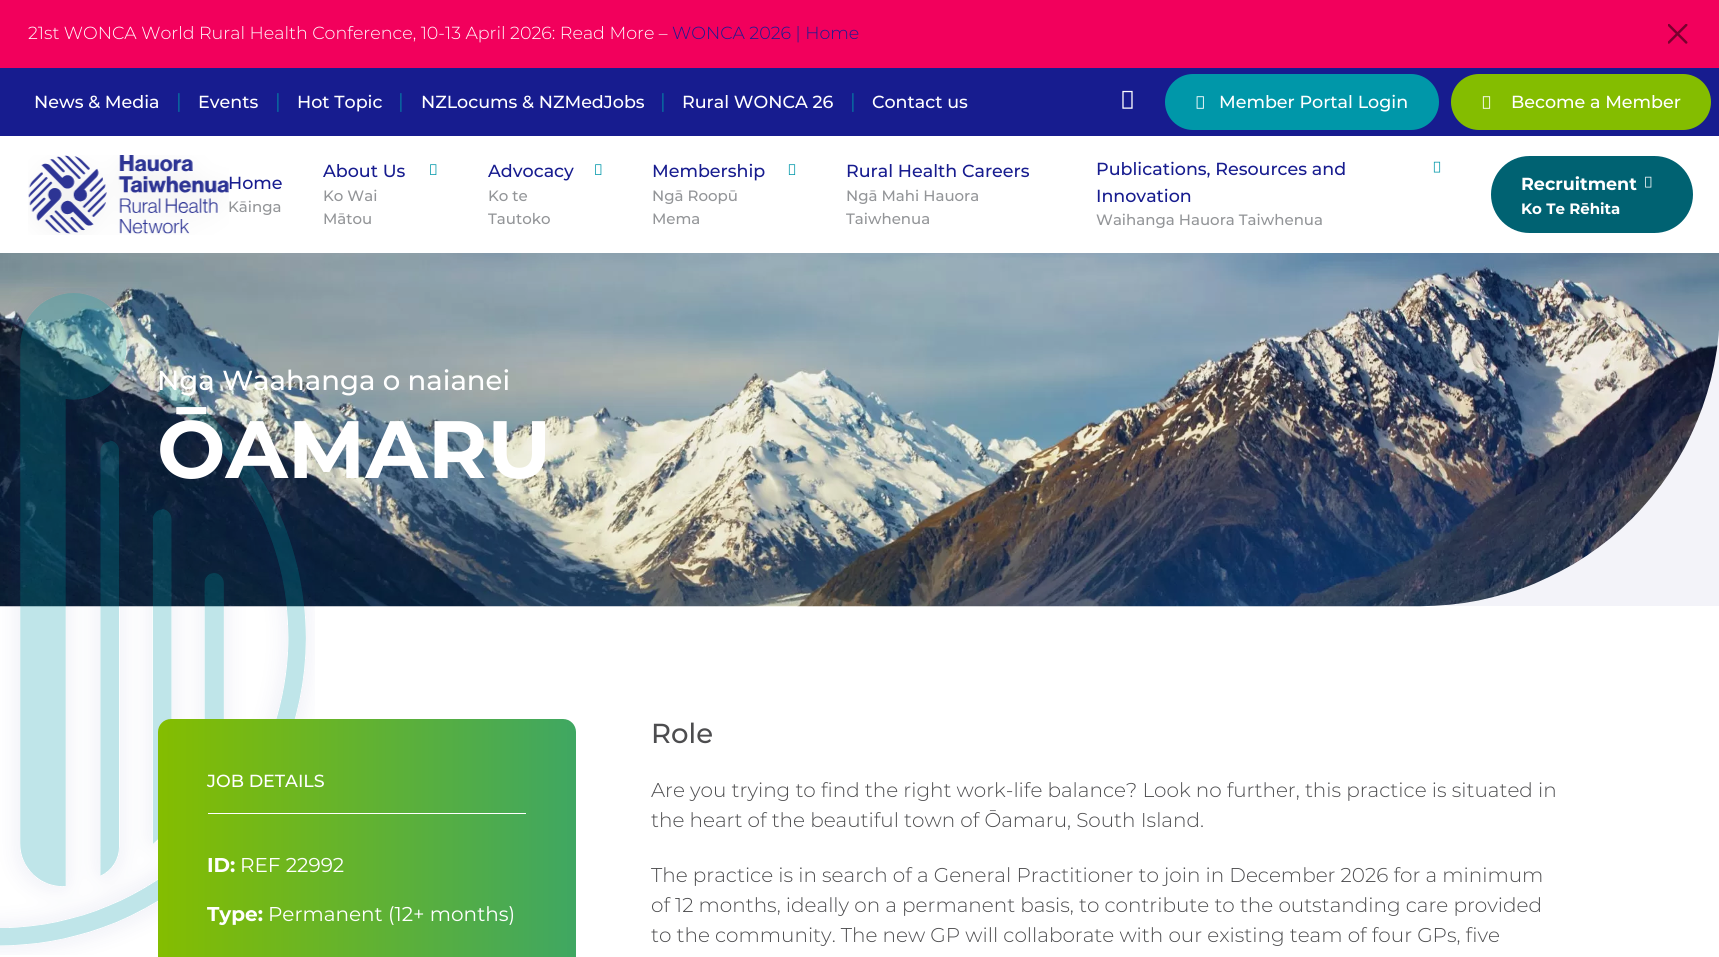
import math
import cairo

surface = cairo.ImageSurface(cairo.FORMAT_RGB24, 1719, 957)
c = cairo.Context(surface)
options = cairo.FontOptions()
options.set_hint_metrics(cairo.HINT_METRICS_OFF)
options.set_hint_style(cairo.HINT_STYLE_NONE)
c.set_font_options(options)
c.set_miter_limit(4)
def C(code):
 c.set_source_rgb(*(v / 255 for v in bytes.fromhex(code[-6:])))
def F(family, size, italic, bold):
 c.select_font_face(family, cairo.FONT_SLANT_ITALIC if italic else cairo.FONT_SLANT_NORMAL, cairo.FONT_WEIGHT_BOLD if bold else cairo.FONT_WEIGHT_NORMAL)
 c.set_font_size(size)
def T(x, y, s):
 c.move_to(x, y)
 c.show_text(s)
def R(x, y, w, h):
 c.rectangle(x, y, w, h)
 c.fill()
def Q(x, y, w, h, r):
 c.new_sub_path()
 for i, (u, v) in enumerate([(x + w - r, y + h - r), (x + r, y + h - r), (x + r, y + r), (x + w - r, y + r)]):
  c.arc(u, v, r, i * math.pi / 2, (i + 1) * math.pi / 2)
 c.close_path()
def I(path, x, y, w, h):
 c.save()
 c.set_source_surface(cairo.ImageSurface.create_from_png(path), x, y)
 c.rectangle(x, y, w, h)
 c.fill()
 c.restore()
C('ffffff')
c.paint()
C('f2005c')
R(0,0,1719,68)
F('Montserrat Light',17.5,0,0)
C('ffffff')
T(28,39,'21st WONCA World Rural Health Conference, 10-13 April 2026: Read More –')
C('171c8f')
T(672,39,'WONCA 2026 | Home')
I('1.png',1668,24,20,20)
R(0,68,1719,68)
F('Montserrat Medium',17.5,0,0)
C('ffffff')
T(34,108,'News & Media')
F('Montserrat Light',20,0,0)
C('0097a9')
T(176,108,'|')
F('Montserrat Medium',17.5,0,0)
C('ffffff')
T(198,108,'Events')
F('Montserrat Light',20,0,0)
C('0097a9')
T(275,108,'|')
F('Montserrat Medium',17.5,0,0)
C('ffffff')
T(297,108,'Hot Topic')
F('Montserrat Light',20,0,0)
C('0097a9')
T(398,108,'|')
F('Montserrat Medium',17.5,0,0)
C('ffffff')
T(421,108,'NZLocums & NZMedJobs')
F('Montserrat Light',20,0,0)
C('0097a9')
T(660,108,'|')
F('Montserrat Medium',17.5,0,0)
C('ffffff')
T(682,108,'Rural WONCA 26')
F('Montserrat Light',20,0,0)
C('0097a9')
T(850,108,'|')
F('Montserrat Medium',17.5,0,0)
C('ffffff')
T(872,108,'Contact us')
I('2.png',1122,90,11,19)
C('0097a9')
Q(1165,74,274,56,28)
c.fill()
I('3.png',1196,96,8,13)
C('ffffff')
T(1219,108,'Member Portal Login')
C('84bd00')
Q(1451,74,260,56,28)
c.fill()
I('4.png',1482,96,9,13)
C('ffffff')
T(1511,108,'Become a Member')
I('5.png',28,155,201,80)
C('171c8f')
T(228,189,'Home')
F('Montserrat Medium',15,0,0)
C('939598')
T(228,212,'Kāinga')
F('Montserrat Medium',17.5,0,0)
C('171c8f')
T(323,177,'About Us')
I('6.png',430,164,7,11)
F('Montserrat Medium',15,0,0)
C('939598')
T(323,201,'Ko Wai')
T(323,224,'Mātou')
F('Montserrat Medium',17.5,0,0)
C('171c8f')
T(488,177,'Advocacy')
I('6.png',595,164,7,11)
F('Montserrat Medium',15,0,0)
C('939598')
T(488,201,'Ko te')
T(488,224,'Tautoko')
F('Montserrat Medium',17.5,0,0)
C('171c8f')
T(652,177,'Membership')
I('7.png',788,164,8,11)
F('Montserrat Medium',15,0,0)
C('939598')
T(652,201,'Ngā Roopū')
T(652,224,'Mema')
F('Montserrat Medium',17.5,0,0)
C('171c8f')
T(846,177,'Rural Health Careers')
F('Montserrat Medium',15,0,0)
C('939598')
T(846,201,'Ngā Mahi Hauora')
T(846,224,'Taiwhenua')
F('Montserrat Medium',17.5,0,0)
C('171c8f')
T(1096,175,'Publications, Resources and')
I('8.png',1433,161,8,12)
T(1096,202,'Innovation')
F('Montserrat Medium',15,0,0)
C('939598')
T(1096,225,'Waihanga Hauora Taiwhenua')
C('006272')
Q(1491,156,202,77,38.5)
c.fill()
F('Montserrat',17.5,0,1)
C('ffffff')
T(1521,190,'Recruitment')
I('9.png',1645,176,7,12)
F('Montserrat',15,0,1)
T(1521,214,'Ko Te Rēhita')
I('10.png',0,253,1719,354)
gradient = cairo.LinearGradient(1410,-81,310,940)
gradient.add_color_stop_rgba(.26,0.09,0.11,0.561,.05)
gradient.add_color_stop_rgba(.99,0,0.592,0.663,.05)
c.set_source(gradient)
R(0,253,1719,353)
I('11.png',0,288,315,667)
F('Montserrat Medium',27.5,0,0)
C('ffffff')
T(157,390,'Nga Waahanga o naianei')
F('Montserrat',81.25,0,1)
T(157,478,'ŌAMARU')
gradient = cairo.LinearGradient(158,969,576,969)
gradient.add_color_stop_rgba(0,0.518,0.741,0,1)
gradient.add_color_stop_rgba(1,0.247,0.655,0.384,1)
c.set_source(gradient)
Q(158,719,418,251,13)
c.fill()
C('ffffff')
R(208,813,318,1)
F('Montserrat Medium',17.5,0,0)
T(207,787,'JOB DETAILS')
F('Montserrat',20,0,1)
T(207,872,'ID:')
F('Montserrat',20,0,0)
T(240,872,'REF 22992')
F('Montserrat',20,0,1)
T(207,921,'Type:')
F('Montserrat',20,0,0)
T(268,921,'Permanent (12+ months)')
F('Montserrat Medium',27.5,0,0)
C('4d4d4f')
T(651,743,'Role')
F('Montserrat Light',20,0,0)
T(651,797,'Are you trying to find the right work-life balance? Look no further, this practice is situated in')
T(651,827,'the heart of the beautiful town of Ōamaru, South Island.')
T(651,882,'The practice is in search of a General Practitioner to join in December 2026 for a minimum')
T(651,912,'of 12 months, ideally on a permanent basis, to contribute to the outstanding care provided')
T(651,942,'to the community. The new GP will collaborate with our existing team of four GPs, five')
surface.write_to_png('o.png')
